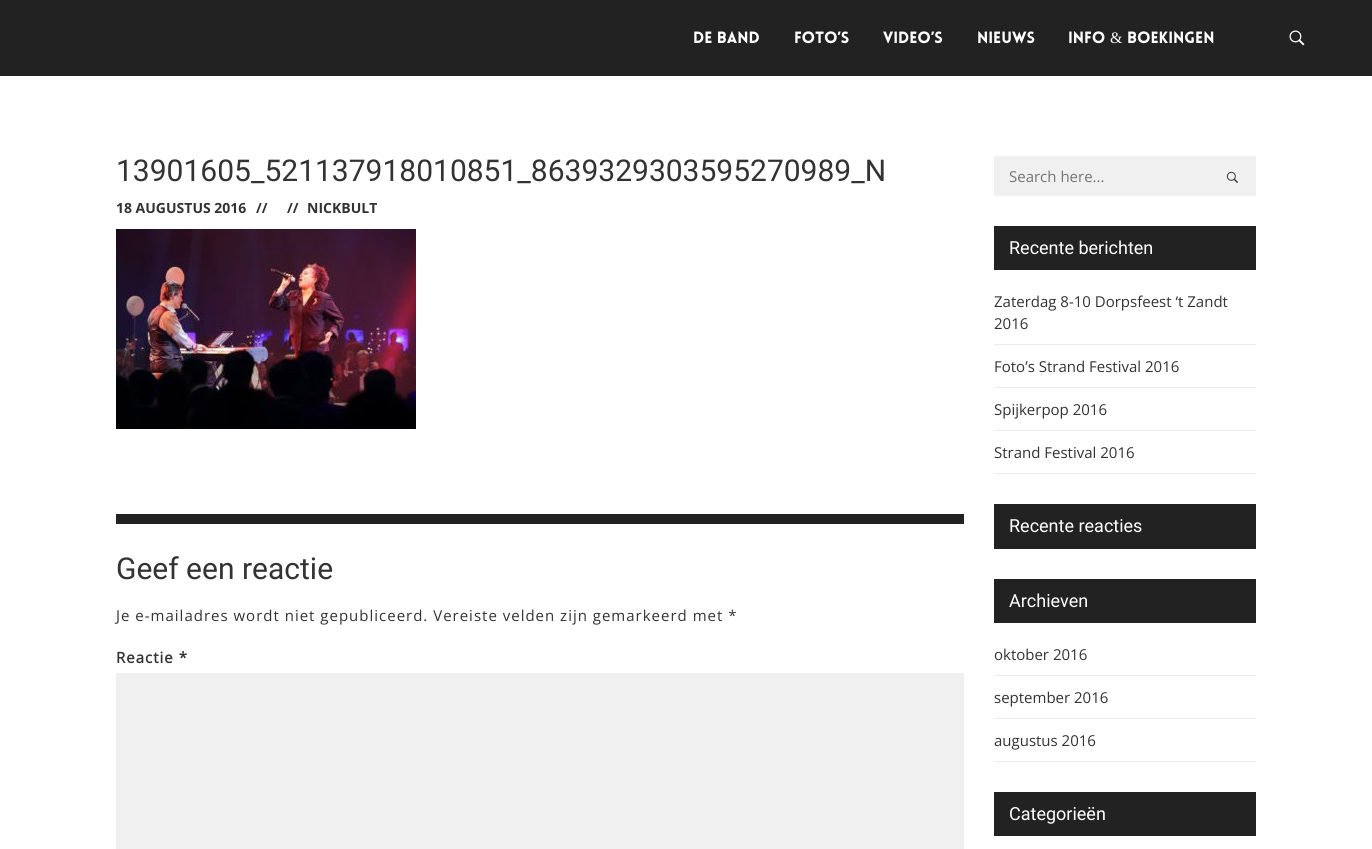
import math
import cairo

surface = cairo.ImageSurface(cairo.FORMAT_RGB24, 1372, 849)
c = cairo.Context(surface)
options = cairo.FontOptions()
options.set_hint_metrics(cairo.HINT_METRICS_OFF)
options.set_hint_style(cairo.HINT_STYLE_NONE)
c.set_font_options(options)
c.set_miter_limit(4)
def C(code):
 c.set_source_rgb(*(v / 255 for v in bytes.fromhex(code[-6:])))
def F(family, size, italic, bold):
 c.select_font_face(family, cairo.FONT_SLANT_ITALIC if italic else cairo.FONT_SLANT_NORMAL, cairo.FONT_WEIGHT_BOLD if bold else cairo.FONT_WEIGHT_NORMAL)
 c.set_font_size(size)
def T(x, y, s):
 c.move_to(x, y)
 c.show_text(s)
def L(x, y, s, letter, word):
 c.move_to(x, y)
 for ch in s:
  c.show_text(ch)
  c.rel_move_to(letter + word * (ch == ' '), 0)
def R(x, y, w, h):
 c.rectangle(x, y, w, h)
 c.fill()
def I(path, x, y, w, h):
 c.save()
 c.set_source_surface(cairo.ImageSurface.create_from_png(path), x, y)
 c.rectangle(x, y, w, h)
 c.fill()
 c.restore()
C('ffffff')
c.paint()
C('222222')
R(0,0,1372,76)
F('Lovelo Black',16,0,0)
C('ffffff')
T(693,43,'DE BAND')
T(794,43,'FOTO’S')
T(883,43,'VIDEO’S')
T(977,43,'NIEUWS')
T(1068,43,'INFO')
F('Liberation Serif',16,0,0)
T(1110,43,'&')
F('Lovelo Black',16,0,0)
T(1127,43,'BOEKINGEN')
I('1.png',1289,30,16,16)
F('Roboto',30,0,0)
C('333333')
T(116,181,'13901605_521137918010851_8639329303595270989_N')
F('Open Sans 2',14,0,1)
T(116,213,'18 AUGUSTUS 2016')
T(256,213,'//')
T(287,213,'//')
T(307,213,'NICKBULT')
I('2.png',116,229,300,200)
C('222222')
R(116,514,848,10)
F('Roboto',30,0,0)
C('333333')
T(116,579,'Geef een reactie')
F('Open Sans',15,0,0)
L(116,621,'Je e-mailadres wordt niet gepubliceerd. Vereiste velden zijn gemarkeerd met *',1,0)
F('Open Sans',15,0,1)
L(116,663,'Reactie *',1,0)
C('f0f0f0')
R(116,673,848,176)
R(994,156,262,40)
F('Open Sans',15,0,0)
C('757575')
T(1009,182,'Search here...')
I('3.png',1226,171,12,12)
C('222222')
R(994,226,262,44)
F('Roboto',18,0,0)
C('ffffff')
T(1009,254,'Recente berichten')
C('ebebeb')
R(994,344,262,1)
F('Open Sans',15,0,0)
C('333333')
T(994,307,'Zaterdag 8-10 Dorpsfeest ‘t Zandt')
T(994,329,'2016')
C('ebebeb')
R(994,387,262,1)
C('333333')
T(994,372,'Foto’s Strand Festival 2016')
C('ebebeb')
R(994,430,262,1)
C('333333')
T(994,415,'Spijkerpop 2016')
C('ebebeb')
R(994,473,262,1)
C('333333')
T(994,458,'Strand Festival 2016')
C('222222')
R(994,504,262,45)
F('Roboto',18,0,0)
C('ffffff')
T(1009,532,'Recente reacties')
C('222222')
R(994,579,262,44)
C('ffffff')
T(1009,607,'Archieven')
C('ebebeb')
R(994,675,262,1)
F('Open Sans',15,0,0)
C('333333')
T(994,660,'oktober 2016')
C('ebebeb')
R(994,718,262,1)
C('333333')
T(994,703,'september 2016')
C('ebebeb')
R(994,761,262,1)
C('333333')
T(994,746,'augustus 2016')
C('222222')
R(994,792,262,44)
F('Roboto',18,0,0)
C('ffffff')
T(1009,820,'Categorieën')
surface.write_to_png('o.png')
